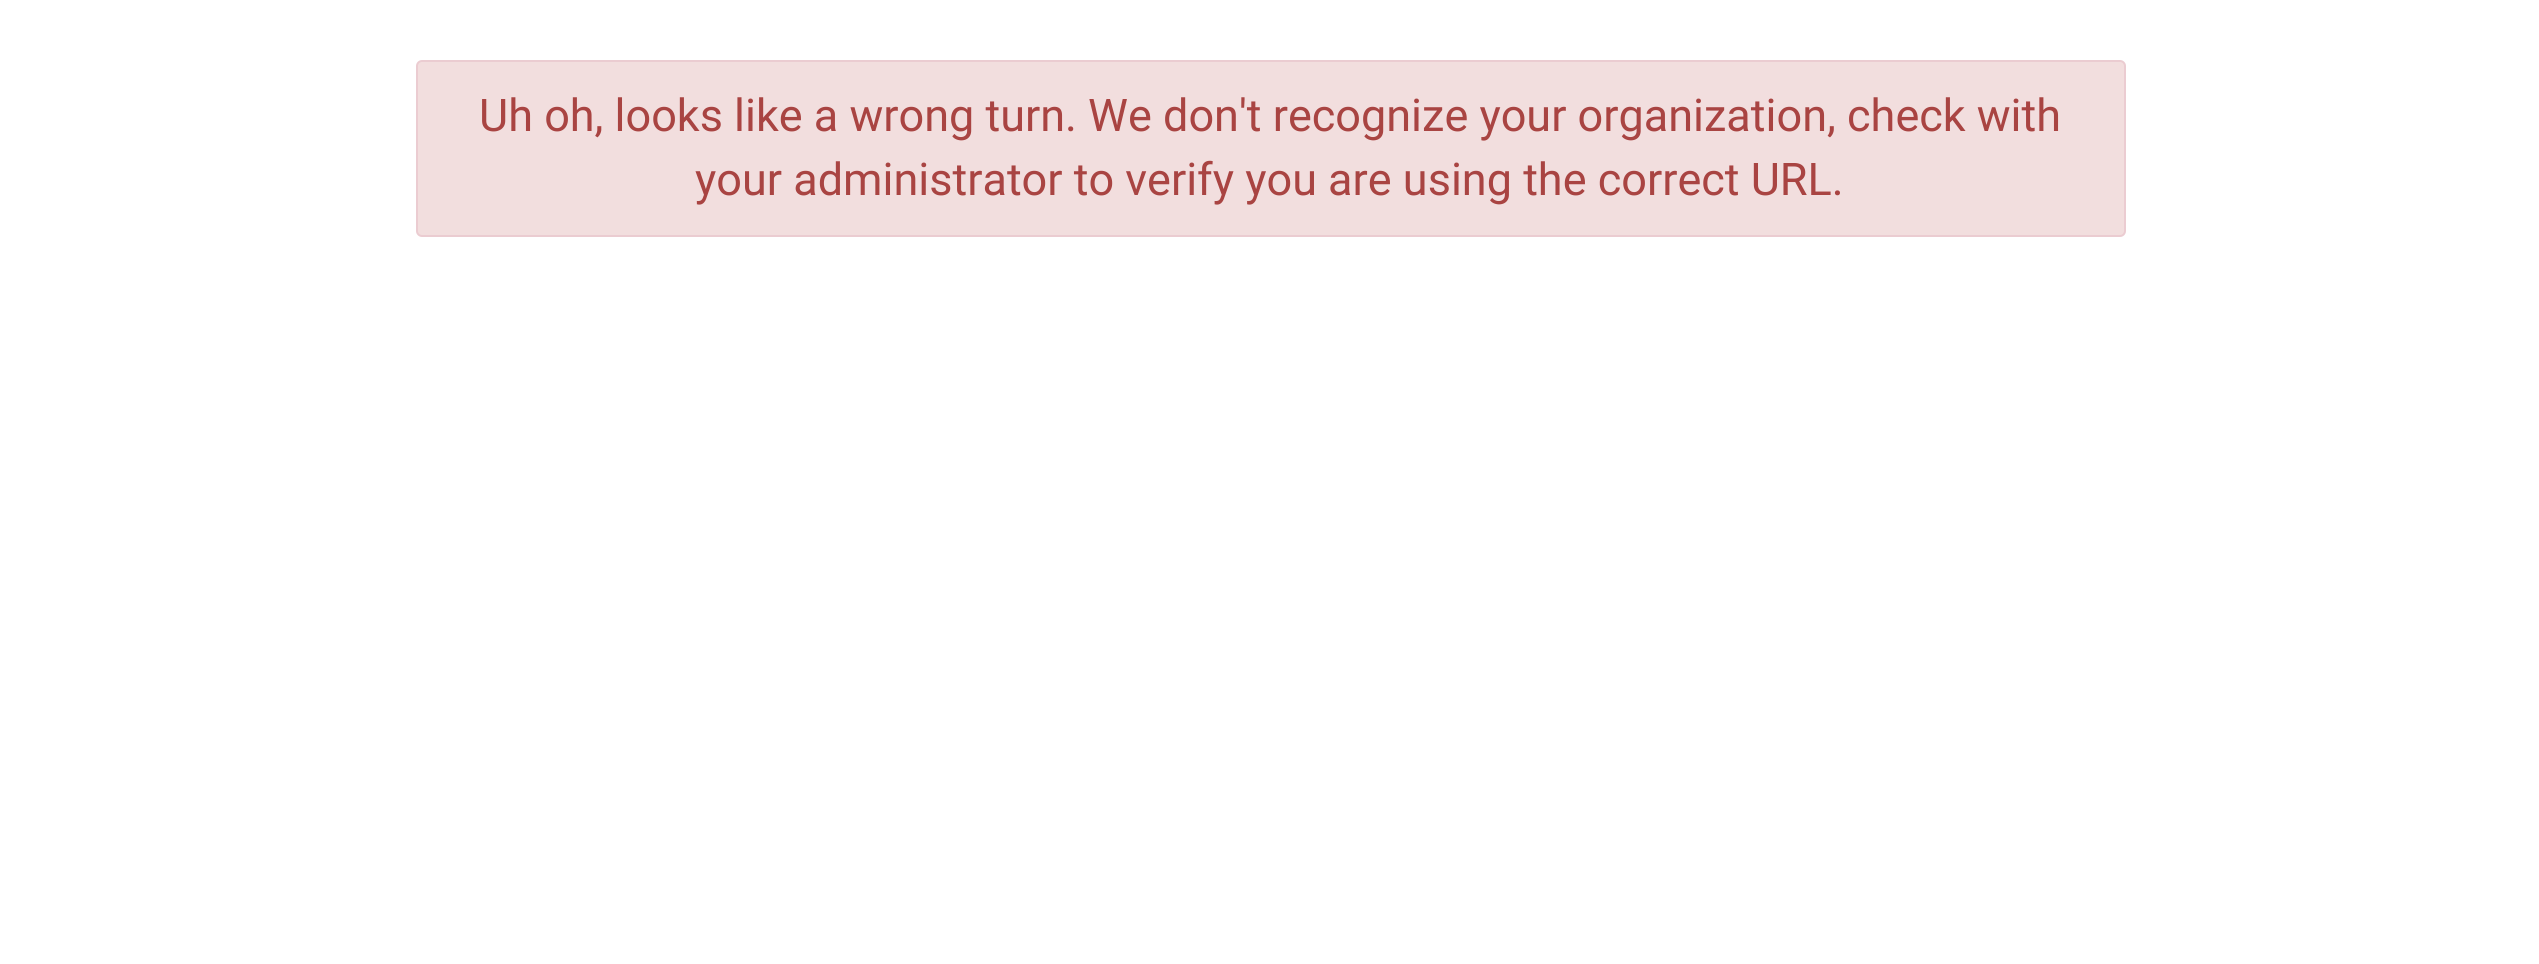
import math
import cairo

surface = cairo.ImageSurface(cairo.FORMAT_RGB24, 2539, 964)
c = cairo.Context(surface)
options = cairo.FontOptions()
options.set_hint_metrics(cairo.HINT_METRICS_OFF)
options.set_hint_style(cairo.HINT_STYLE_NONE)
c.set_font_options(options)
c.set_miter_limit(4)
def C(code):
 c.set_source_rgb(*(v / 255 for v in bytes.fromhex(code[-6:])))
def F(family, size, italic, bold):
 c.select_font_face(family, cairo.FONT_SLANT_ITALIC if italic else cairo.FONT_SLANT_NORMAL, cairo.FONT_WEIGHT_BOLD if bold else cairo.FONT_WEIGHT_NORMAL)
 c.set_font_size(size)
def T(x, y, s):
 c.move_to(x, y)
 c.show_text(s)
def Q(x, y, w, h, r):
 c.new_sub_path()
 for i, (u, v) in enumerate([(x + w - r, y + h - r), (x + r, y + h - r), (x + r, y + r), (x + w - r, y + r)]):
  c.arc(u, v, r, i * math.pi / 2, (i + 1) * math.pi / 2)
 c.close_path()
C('ffffff')
c.paint()
C('f2dede')
Q(417,61,1708,175,5)
c.fill_preserve()
C('ebccd1')
c.stroke()
F('Roboto',45,0,0)
C('a94442')
T(479,131,'Uh oh, looks like a wrong turn. We don\'t recognize your organization, check with')
T(695,195,'your administrator to verify you are using the correct URL.')
surface.write_to_png('o.png')
